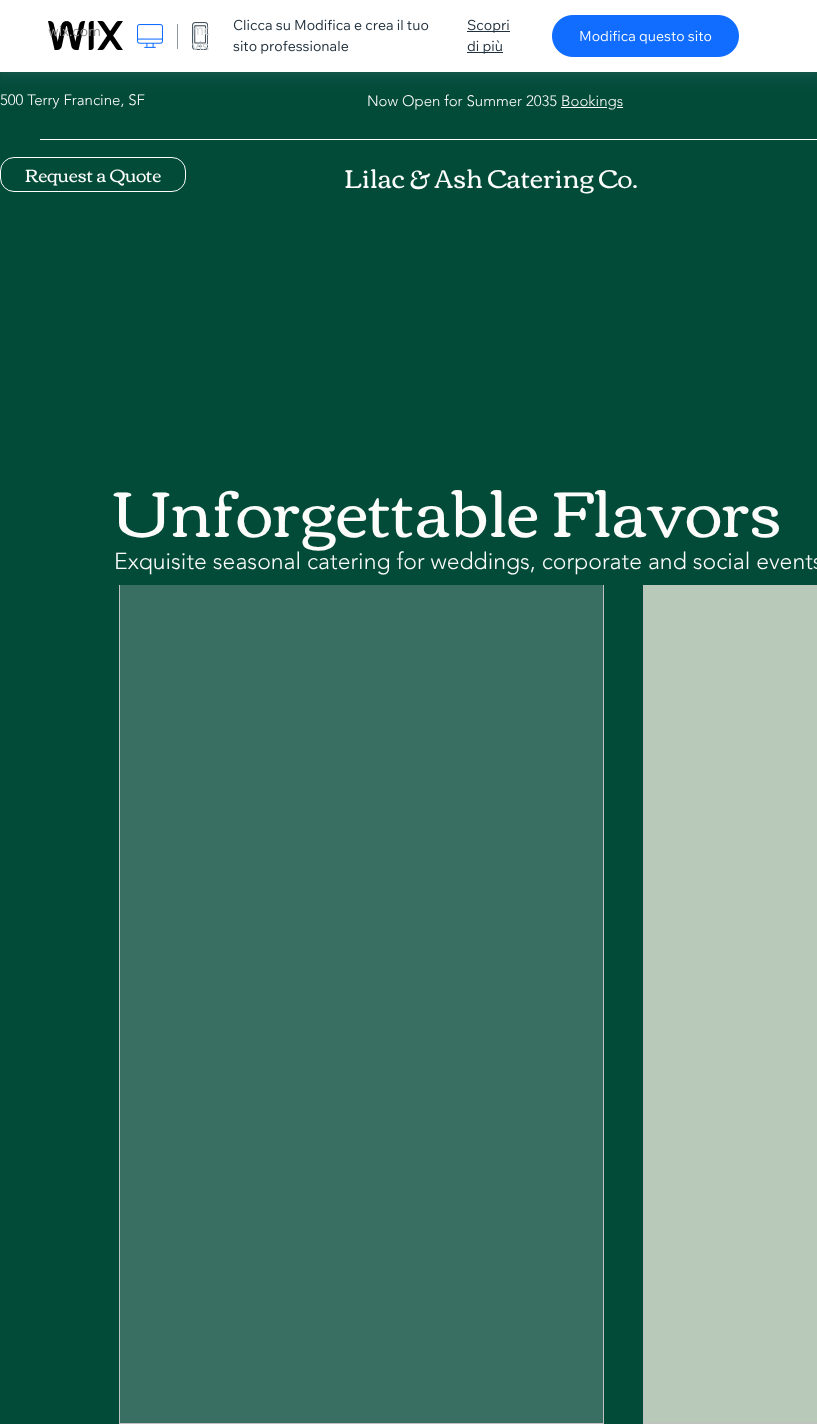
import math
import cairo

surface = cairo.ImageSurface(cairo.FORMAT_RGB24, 817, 1424)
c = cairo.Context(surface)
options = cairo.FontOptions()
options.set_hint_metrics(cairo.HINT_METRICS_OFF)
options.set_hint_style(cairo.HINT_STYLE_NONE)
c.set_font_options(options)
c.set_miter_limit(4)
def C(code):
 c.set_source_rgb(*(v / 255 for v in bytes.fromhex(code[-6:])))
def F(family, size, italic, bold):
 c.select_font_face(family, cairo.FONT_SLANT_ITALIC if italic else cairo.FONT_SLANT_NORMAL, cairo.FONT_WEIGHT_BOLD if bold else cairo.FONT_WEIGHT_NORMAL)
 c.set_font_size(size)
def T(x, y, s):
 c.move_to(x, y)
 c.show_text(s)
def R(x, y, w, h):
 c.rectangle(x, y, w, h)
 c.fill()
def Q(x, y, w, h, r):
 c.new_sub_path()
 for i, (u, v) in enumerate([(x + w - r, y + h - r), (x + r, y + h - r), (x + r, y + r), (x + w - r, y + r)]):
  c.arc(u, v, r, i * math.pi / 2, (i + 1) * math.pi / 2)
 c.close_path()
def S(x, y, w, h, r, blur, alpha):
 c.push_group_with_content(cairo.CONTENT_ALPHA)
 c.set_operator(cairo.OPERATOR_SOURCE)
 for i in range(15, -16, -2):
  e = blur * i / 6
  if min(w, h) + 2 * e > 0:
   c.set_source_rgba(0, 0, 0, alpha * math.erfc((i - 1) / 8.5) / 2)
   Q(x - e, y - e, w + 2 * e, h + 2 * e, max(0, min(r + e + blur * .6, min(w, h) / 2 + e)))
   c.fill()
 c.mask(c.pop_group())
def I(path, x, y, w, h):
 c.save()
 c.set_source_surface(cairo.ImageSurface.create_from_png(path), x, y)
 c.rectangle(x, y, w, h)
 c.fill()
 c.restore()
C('ffffff')
c.paint()
I('4.png',0,72,817,1352)
C('81a2b6')
S(0,2,817,72,0,9,.2)
C('ffffff')
R(0,0,817,72)
I('1.png',48,21,75,29)
F('Wix Madefor Text',14,0,0)
C('8f8f8f')
T(48,36,'wix.com')
I('2.png',137,24,26,24)
C('90989e')
R(177,24,1,25)
I('3.png',192,22,16,28)
c.save()
c.rectangle(192,22,17,28)
c.clip()
F('Liberation Sans',14,0,0)
C('d0d4d7')
T(192,35,'mo')
C('c7cccf')
T(192,51,'vis')
c.restore()
C('20303c')
T(233,30,'Clicca su Modifica e crea il tuo')
T(233,51,'sito professionale')
R(467,31,43,1)
T(467,30,'Scopri')
R(467,52,36,1)
T(467,51,'di più')
C('116dff')
Q(552,15,187,42,21)
c.fill()
C('ffffff')
T(579,41,'Modifica questo sito')
surface.write_to_png('o.png')
